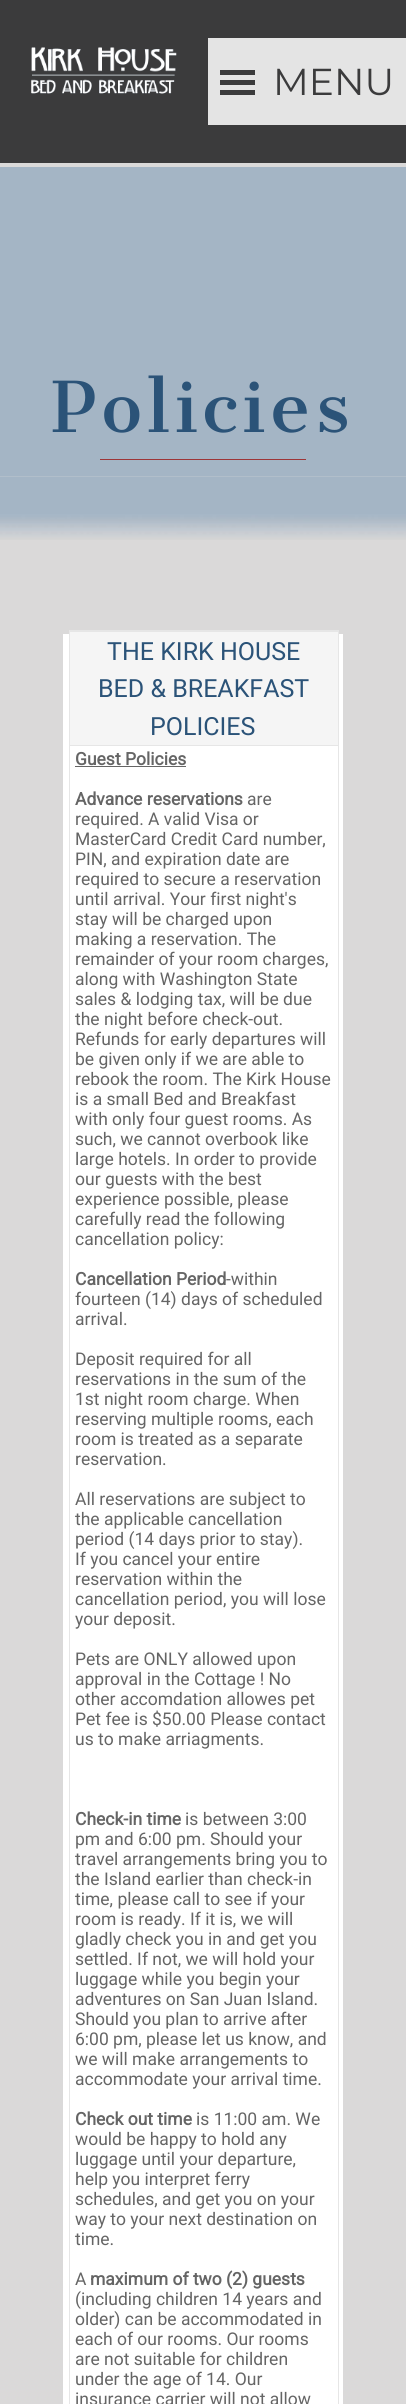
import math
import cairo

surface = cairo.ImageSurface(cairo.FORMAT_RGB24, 406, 2404)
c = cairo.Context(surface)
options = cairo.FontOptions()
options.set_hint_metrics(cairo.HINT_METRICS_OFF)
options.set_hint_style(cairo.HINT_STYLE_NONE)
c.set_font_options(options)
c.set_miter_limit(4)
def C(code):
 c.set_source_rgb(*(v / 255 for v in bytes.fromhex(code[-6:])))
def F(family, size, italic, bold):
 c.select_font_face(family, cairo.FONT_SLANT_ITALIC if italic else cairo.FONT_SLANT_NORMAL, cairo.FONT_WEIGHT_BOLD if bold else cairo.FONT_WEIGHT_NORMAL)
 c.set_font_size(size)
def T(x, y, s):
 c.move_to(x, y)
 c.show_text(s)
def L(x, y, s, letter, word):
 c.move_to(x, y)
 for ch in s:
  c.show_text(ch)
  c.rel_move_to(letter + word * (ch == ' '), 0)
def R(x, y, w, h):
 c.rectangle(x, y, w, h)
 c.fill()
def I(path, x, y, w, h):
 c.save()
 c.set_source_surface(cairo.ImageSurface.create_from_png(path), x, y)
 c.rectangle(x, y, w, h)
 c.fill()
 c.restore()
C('dad9d9')
c.paint()
C('3b3b3c')
R(0,0,406,163)
I('1.png',31,47,146,47)
C('e4e4e4')
R(208,38,198,87)
C('3b3b3c')
R(220,70,35,5)
R(220,80,35,5)
R(220,90,35,5)
F('Montserrat',37.5,0,0)
T(273,95,'MENU')
C('a4b5c5')
R(0,167,406,309)
F('Cantata One',68.75,0,0)
C('2b5378')
L(51,432,'Policies',5,0)
C('9d3538')
R(100,459,206,1)
I('2.png',0,476,406,64)
C('ffffff')
R(63,634,280,1770)
c.rectangle(69.5,630.5,269,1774)
C('e6e6e6')
c.set_line_width(1)
c.stroke()
C('f5f5f5')
R(70,632,268,113)
C('e6e6e6')
R(70,631,268,1)
R(70,745,268,1)
F('Roboto',25,0,0)
C('2b5378')
T(107,660,'THE KIRK HOUSE')
T(98,697,'BED & BREAKFAST')
T(150,735,'POLICIES')
F('Roboto',17.5,0,1)
C('656565')
T(75,765,'Guest Policies')
R(75,766,111,1)
T(75,805,'Advance reservations')
F('Roboto',17.5,0,0)
T(247,805,'are')
T(75,825,'required. A valid Visa or')
T(75,845,'MasterCard Credit Card number,')
T(75,865,'PIN, and expiration date are')
T(75,885,'required to secure a reservation')
T(75,905,'until arrival. Your first night\'s')
T(75,925,'stay will be charged upon')
T(75,945,'making a reservation. The')
T(75,965,'remainder of your room charges,')
T(75,985,'along with Washington State')
T(75,1005,'sales & lodging tax, will be due')
T(75,1025,'the night before check-out.')
T(75,1045,'Refunds for early departures will')
T(75,1065,'be given only if we are able to')
T(75,1085,'rebook the room. The Kirk House')
T(75,1105,'is a small Bed and Breakfast')
T(75,1125,'with only four guest rooms. As')
T(75,1145,'such, we cannot overbook like')
T(75,1165,'large hotels. In order to provide')
T(75,1185,'our guests with the best')
T(75,1205,'experience possible, please')
T(75,1225,'carefully read the following')
T(75,1245,'cancellation policy:')
F('Roboto',17.5,0,1)
T(75,1285,'Cancellation Period')
F('Roboto',17.5,0,0)
T(226,1285,'-within')
T(75,1305,'fourteen (14) days of scheduled')
T(75,1325,'arrival.')
T(75,1365,'Deposit required for all')
T(75,1385,'reservations in the sum of the')
T(75,1405,'1st night room charge. When')
T(75,1425,'reserving multiple rooms, each')
T(75,1445,'room is treated as a separate')
T(75,1465,'reservation.')
T(75,1505,'All reservations are subject to')
T(75,1525,'the applicable cancellation')
T(75,1545,'period (14 days prior to stay).')
T(75,1565,'If you cancel your entire')
T(75,1585,'reservation within the')
T(75,1605,'cancellation period, you will lose')
T(75,1625,'your deposit.')
T(75,1665,'Pets are ONLY allowed upon')
T(75,1685,'approval in the Cottage ! No')
T(75,1705,'other accomdation allowes pet')
T(75,1725,'Pet fee is $50.00 Please contact')
T(75,1745,'us to make arriagments.')
F('Roboto',17.5,0,1)
T(75,1825,'Check-in time')
F('Roboto',17.5,0,0)
T(185,1825,'is between 3:00')
T(75,1845,'pm and 6:00 pm. Should your')
T(75,1865,'travel arrangements bring you to')
T(75,1885,'the Island earlier than check-in')
T(75,1905,'time, please call to see if your')
T(75,1925,'room is ready. If it is, we will')
T(75,1945,'gladly check you in and get you')
T(75,1965,'settled. If not, we will hold your')
T(75,1985,'luggage while you begin your')
T(75,2005,'adventures on San Juan Island.')
T(75,2025,'Should you plan to arrive after')
T(75,2045,'6:00 pm, please let us know, and')
T(75,2065,'we will make arrangements to')
T(75,2085,'accommodate your arrival time.')
F('Roboto',17.5,0,1)
T(75,2125,'Check out time')
F('Roboto',17.5,0,0)
T(196,2125,'is 11:00 am. We')
T(75,2145,'would be happy to hold any')
T(75,2165,'luggage until your departure,')
T(75,2185,'help you interpret ferry')
T(75,2205,'schedules, and get you on your')
T(75,2225,'way to your next destination on')
T(75,2245,'time.')
T(75,2285,'A')
F('Roboto',17.5,0,1)
T(90,2285,'maximum of two (2) guests')
F('Roboto',17.5,0,0)
T(75,2305,'(including children 14 years and')
T(75,2325,'older) can be accommodated in')
T(75,2345,'each of our rooms. Our rooms')
T(75,2365,'are not suitable for children')
T(75,2385,'under the age of 14. Our')
T(75,2405,'insurance carrier will not allow')
surface.write_to_png('o.png')
